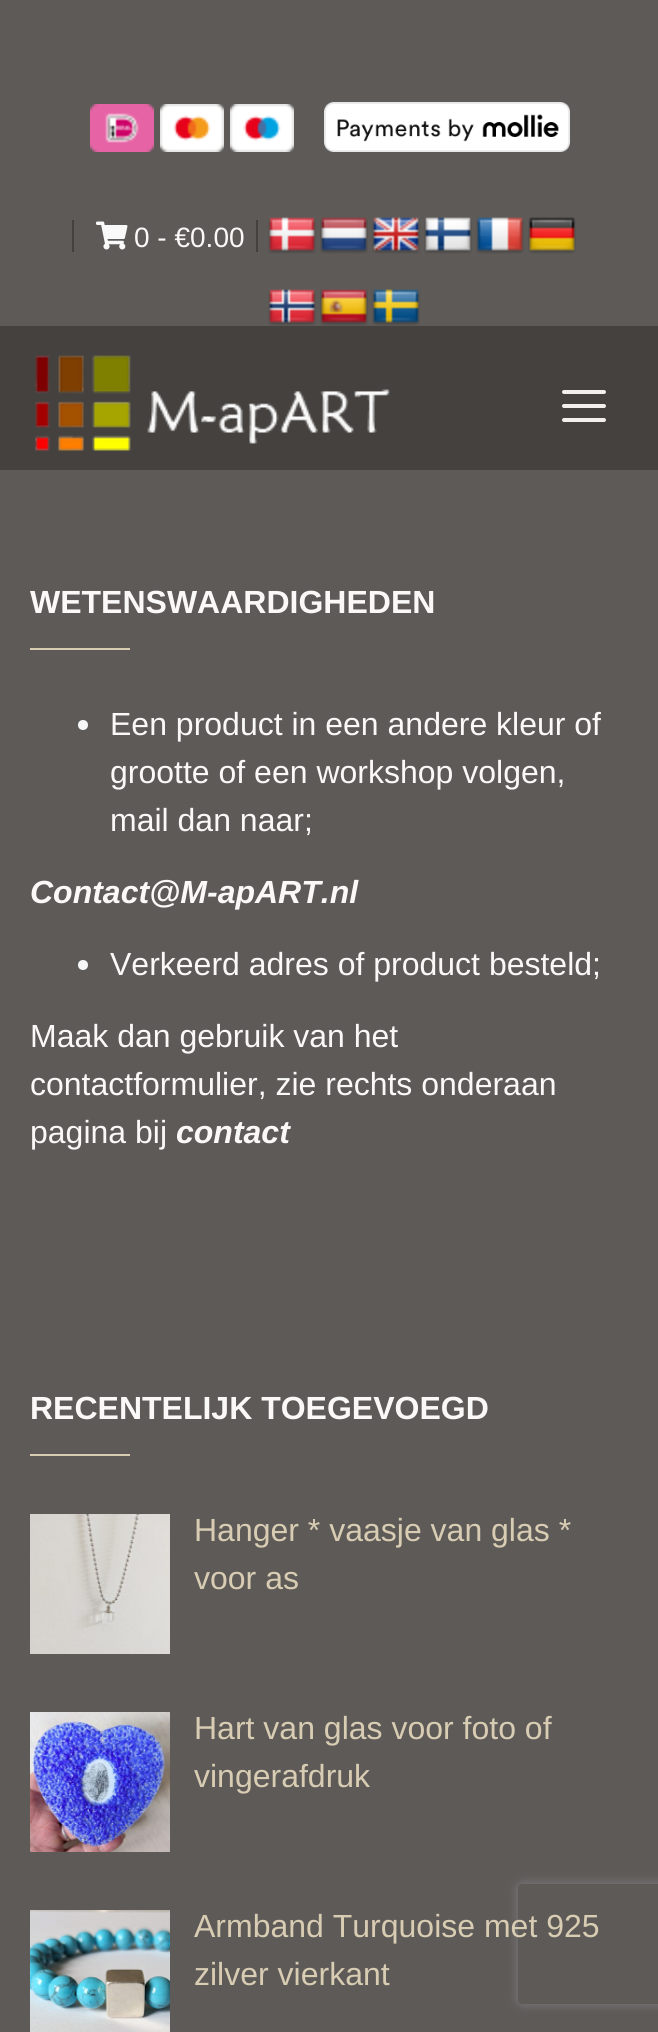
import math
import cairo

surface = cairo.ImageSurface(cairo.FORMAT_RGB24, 658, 2032)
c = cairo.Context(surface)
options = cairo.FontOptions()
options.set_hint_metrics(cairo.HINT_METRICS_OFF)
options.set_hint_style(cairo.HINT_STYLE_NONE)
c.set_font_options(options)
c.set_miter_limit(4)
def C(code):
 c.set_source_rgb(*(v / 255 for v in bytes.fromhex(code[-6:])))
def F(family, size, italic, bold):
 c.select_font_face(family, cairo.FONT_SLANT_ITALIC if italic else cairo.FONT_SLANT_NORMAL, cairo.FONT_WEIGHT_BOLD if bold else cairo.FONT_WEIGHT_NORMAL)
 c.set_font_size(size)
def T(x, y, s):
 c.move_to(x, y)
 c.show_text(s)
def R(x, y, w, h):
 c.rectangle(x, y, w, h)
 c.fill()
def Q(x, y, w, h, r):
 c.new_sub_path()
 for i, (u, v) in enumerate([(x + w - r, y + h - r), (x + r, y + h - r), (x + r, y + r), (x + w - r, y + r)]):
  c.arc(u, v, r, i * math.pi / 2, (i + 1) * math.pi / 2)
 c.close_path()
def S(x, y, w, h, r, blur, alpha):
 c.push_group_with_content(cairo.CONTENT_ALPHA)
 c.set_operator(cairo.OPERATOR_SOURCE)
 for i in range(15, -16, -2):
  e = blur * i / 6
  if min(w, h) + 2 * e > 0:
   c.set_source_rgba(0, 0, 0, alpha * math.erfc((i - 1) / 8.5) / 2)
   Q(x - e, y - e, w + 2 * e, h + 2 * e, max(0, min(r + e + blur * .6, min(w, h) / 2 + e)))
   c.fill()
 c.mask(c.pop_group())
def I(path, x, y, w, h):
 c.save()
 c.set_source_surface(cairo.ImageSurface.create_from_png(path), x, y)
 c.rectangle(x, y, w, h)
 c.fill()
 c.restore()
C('5d5a58')
c.paint()
I('1.png',90,104,64,48)
I('2.png',160,104,64,48)
I('3.png',230,104,64,48)
I('4.png',324,102,246,50)
C('44413f')
R(72,220,2,32)
I('5.png',96,221,32,29)
F('Liberation Sans',28,0,0)
C('faf9f7')
T(134,247,'0 - €0.00')
C('44413f')
R(256,220,2,32)
I('6.png',268,217,48,37)
I('7.png',320,217,48,37)
I('8.png',372,217,48,37)
I('9.png',424,217,48,37)
I('10.png',476,217,48,37)
I('11.png',528,217,48,37)
I('12.png',268,289,48,37)
I('13.png',320,289,48,37)
I('14.png',372,289,48,37)
R(0,326,658,144)
I('15.png',35,355,355,96)
C('f3efec')
Q(562,390,44,4,2)
c.fill()
Q(562,404,44,4,2)
c.fill()
Q(562,418,44,4,2)
c.fill()
F('Liberation Sans',32,0,1)
C('faf9f7')
T(30,613,'WETENSWAARDIGHEDEN')
C('d8ccb3')
R(30,648,100,2)
C('f7f7f7')
c.new_path()
c.arc(83,725,5,0,2 * math.pi)
c.fill()
F('Liberation Sans',32,0,0)
C('faf9f7')
T(110,735,'Een product in een andere kleur of')
T(110,783,'grootte of een workshop volgen,')
T(110,831,'mail dan naar;')
F('Liberation Sans',32,1,1)
T(30,903,'Contact@M-apART.nl')
C('f7f7f7')
c.new_path()
c.arc(83,965,5,0,2 * math.pi)
c.fill()
F('Liberation Sans',32,0,0)
C('faf9f7')
T(110,975,'Verkeerd adres of product besteld;')
T(30,1047,'Maak dan gebruik van het')
T(30,1095,'contactformulier, zie rechts onderaan')
T(30,1143,'pagina bij')
F('Liberation Sans',32,1,1)
T(176,1143,'contact')
F('Liberation Sans',32,0,1)
T(30,1419,'RECENTELIJK TOEGEVOEGD')
C('d8ccb3')
R(30,1454,100,2)
I('16.png',30,1514,140,140)
F('Liberation Sans',32,0,0)
T(194,1541,'Hanger * vaasje van glas *')
T(194,1589,'voor as')
I('17.png',30,1712,140,140)
T(194,1739,'Hart van glas voor foto of')
T(194,1787,'vingerafdruk')
I('18.png',30,1910,140,122)
c.save()
c.set_fill_rule(cairo.FILL_RULE_EVEN_ODD)
c.new_path()
c.move_to(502,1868)
c.line_to(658,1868)
c.line_to(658,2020)
c.line_to(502,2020)
c.close_path()
c.move_to(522,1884)
c.line_to(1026,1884)
c.curve_to(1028,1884,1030,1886,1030,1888)
c.line_to(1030,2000)
c.curve_to(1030,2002,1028,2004,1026,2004)
c.line_to(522,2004)
c.curve_to(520,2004,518,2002,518,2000)
c.line_to(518,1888)
c.curve_to(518,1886,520,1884,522,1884)
c.close_path()
c.clip()
C('808080')
S(518,1884,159,120,4,5,1)
c.restore()
T(194,1937,'Armband Turquoise met 925')
T(194,1985,'zilver vierkant')
surface.write_to_png('o.png')
